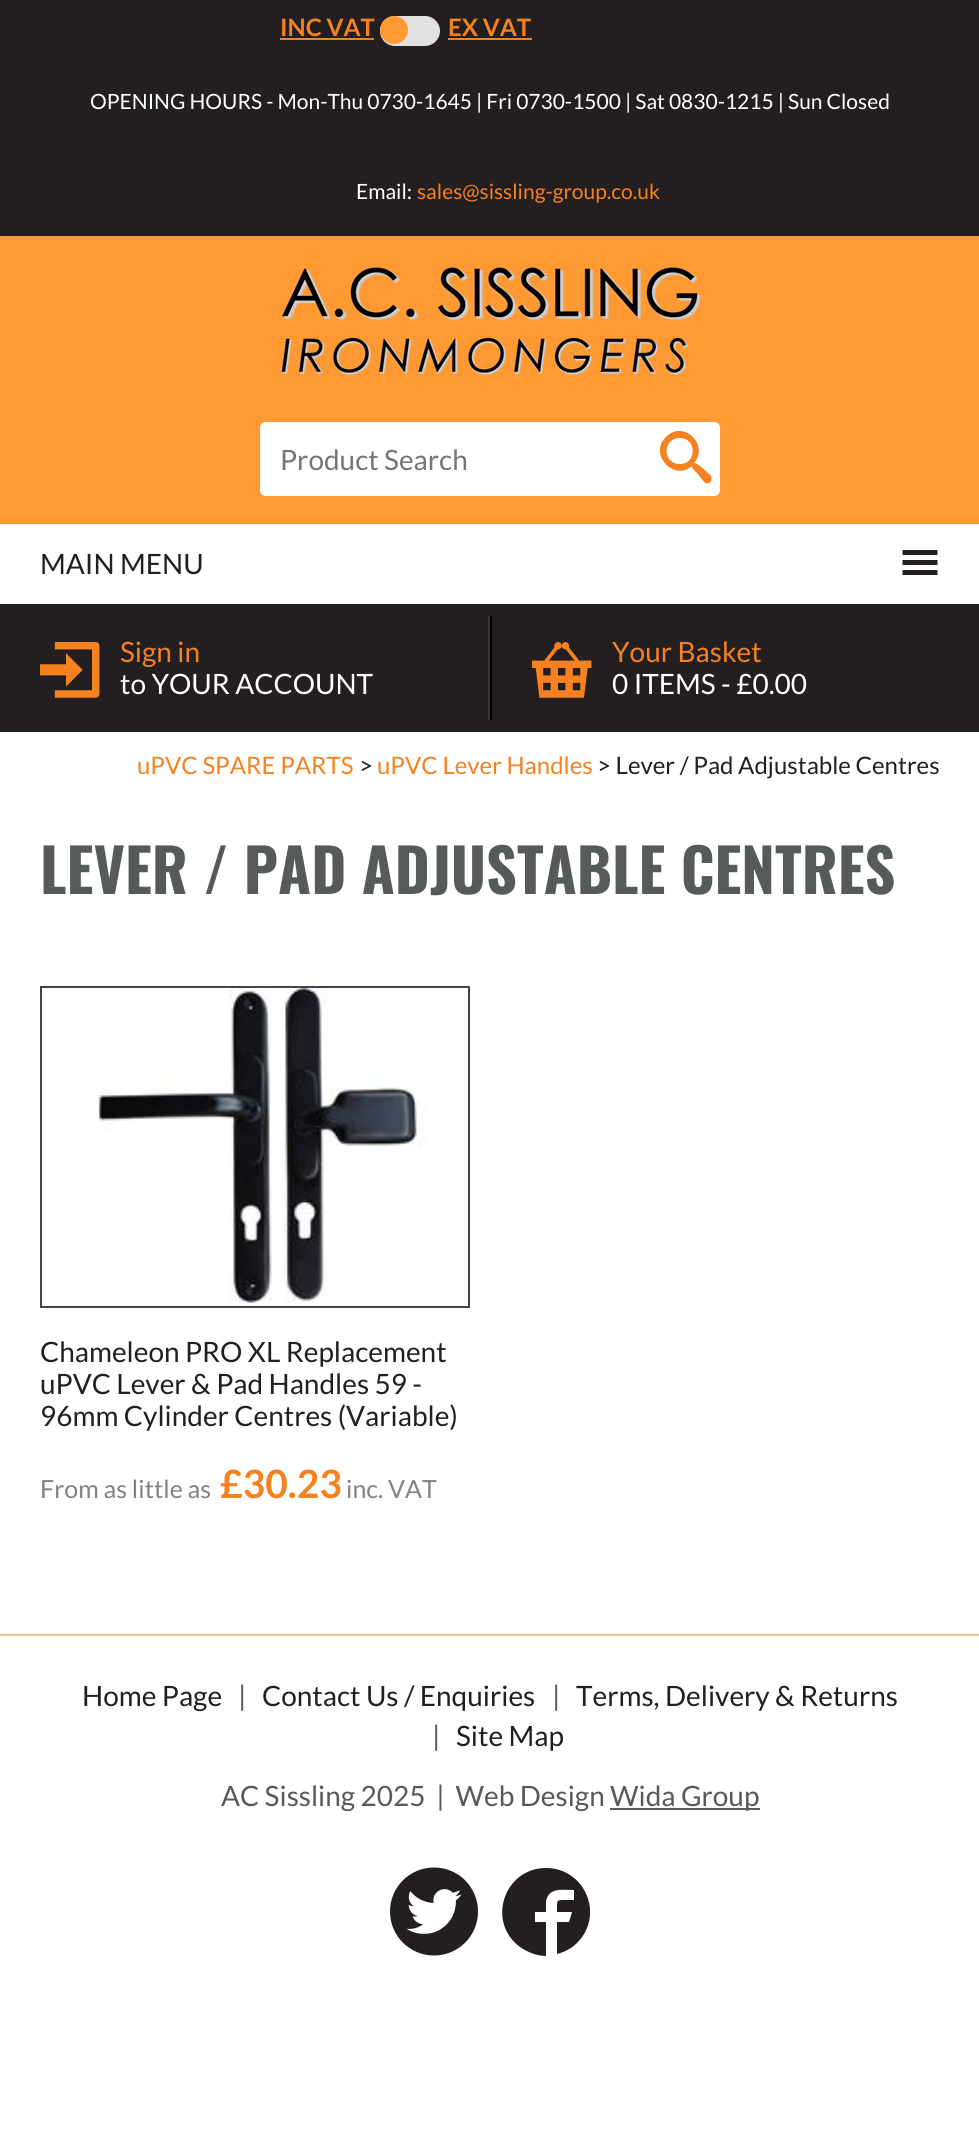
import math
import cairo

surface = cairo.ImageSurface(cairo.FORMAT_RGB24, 979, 2134)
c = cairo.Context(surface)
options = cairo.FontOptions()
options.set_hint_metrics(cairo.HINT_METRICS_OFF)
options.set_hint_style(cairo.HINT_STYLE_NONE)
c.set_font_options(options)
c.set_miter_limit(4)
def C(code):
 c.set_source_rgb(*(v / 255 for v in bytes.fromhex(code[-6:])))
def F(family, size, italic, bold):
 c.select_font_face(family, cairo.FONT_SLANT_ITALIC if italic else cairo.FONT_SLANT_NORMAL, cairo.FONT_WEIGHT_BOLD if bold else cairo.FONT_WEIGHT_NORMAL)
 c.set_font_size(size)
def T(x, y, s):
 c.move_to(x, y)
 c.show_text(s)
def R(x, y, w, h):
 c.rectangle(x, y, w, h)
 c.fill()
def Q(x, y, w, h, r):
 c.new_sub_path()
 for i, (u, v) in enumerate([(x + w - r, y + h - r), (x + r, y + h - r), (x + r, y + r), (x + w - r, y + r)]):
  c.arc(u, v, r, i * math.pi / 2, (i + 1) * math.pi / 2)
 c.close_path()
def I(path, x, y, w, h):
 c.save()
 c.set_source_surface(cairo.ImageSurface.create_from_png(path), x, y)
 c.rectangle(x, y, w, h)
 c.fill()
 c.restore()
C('ffffff')
c.paint()
C('231f20')
R(0,0,979,236)
F('Lato',24,0,1)
C('f58220')
T(280,36,'INC VAT')
R(280,38,94,2)
C('e1e1e1')
Q(380,16,60,30,15)
c.fill()
C('ff9933')
c.arc(394,30,14,0,2 * math.pi)
c.fill()
C('f58220')
T(448,36,'EX VAT')
R(448,38,84,2)
F('Lato',21,0,0)
C('ffffff')
T(90,109,'OPENING HOURS - Mon-Thu 0730-1645 | Fri 0730-1500 | Sat 0830-1215 | Sun Closed')
T(356,199,'Email:')
C('f58220')
T(417,199,'sales@sissling-group.co.uk')
C('ff9933')
R(0,236,979,288)
I('1.png',281,266,420,109)
C('ffffff')
c.new_path()
c.move_to(266,423)
c.line_to(651,423)
c.line_to(651,495)
c.line_to(266,495)
c.curve_to(263,495,261,493,261,490)
c.line_to(261,428)
c.curve_to(261,425,263,423,266,423)
c.close_path()
c.fill_preserve()
c.stroke()
F('Lato',28,0,0)
C('757575')
T(280,470,'Product Search')
C('ffffff')
c.new_path()
c.move_to(653,423)
c.line_to(714,423)
c.curve_to(717,423,719,425,719,428)
c.line_to(719,490)
c.curve_to(719,493,717,495,714,495)
c.line_to(653,495)
c.close_path()
c.fill_preserve()
c.stroke()
C('f58220')
c.new_path()
c.move_to(710,475)
c.curve_to(708,473,698,463,694,463)
c.curve_to(710,445,683,419,666,437)
c.curve_to(648,454,674,482,692,466)
c.curve_to(692,469,696,472,697,473)
c.line_to(705,483)
c.curve_to(710,485,714,479,710,475)
c.close_path()
c.move_to(680,464)
c.curve_to(662,464,662,438,680,438)
c.curve_to(697,438,697,464,680,464)
c.close_path()
c.fill()
C('231f20')
T(40,574,'MAIN MENU')
c.new_path()
c.move_to(902.5,550)
c.line_to(937.5,550)
c.line_to(937.5,555)
c.line_to(902.5,555)
c.close_path()
c.move_to(902.5,560)
c.line_to(937.5,560)
c.line_to(937.5,565)
c.line_to(902.5,565)
c.close_path()
c.move_to(902.5,570)
c.line_to(937.5,570)
c.line_to(937.5,575)
c.line_to(902.5,575)
c.close_path()
c.fill()
R(0,604,979,128)
C('363636')
R(488,616,2,104)
I('2.png',40,642,60,56)
C('f58220')
T(120,662,'Sign in')
C('ffffff')
T(120,694,'to YOUR ACCOUNT')
C('000000')
R(490,616,2,104)
I('3.png',532,642,60,56)
C('f58220')
T(612,662,'Your Basket')
C('ffffff')
T(612,694,'0 ITEMS - £0.00')
F('Lato',24,0,0)
C('f58220')
T(137,774,'uPVC SPARE PARTS')
C('231f20')
T(359,774,'>')
C('f58220')
T(377,774,'uPVC Lever Handles')
C('231f20')
T(597,774,'> Lever / Pad Adjustable Centres')
F('Oswald',60,0,1)
C('565a5a')
T(40,894,'LEVER / PAD ADJUSTABLE CENTRES')
c.rectangle(41,987,428,320)
C('444444')
c.stroke()
I('4.png',98,988,328,315)
F('Lato',28,0,0)
C('231f20')
T(40,1362,'Chameleon PRO XL Replacement')
T(40,1394,'uPVC Lever & Pad Handles 59 -')
T(40,1426,'96mm Cylinder Centres (Variable)')
F('Lato',25,0,0)
C('838181')
T(40,1498,'From as little as')
F('Lato',39,0,1)
C('f58220')
T(220,1498,'£30.23')
F('Lato',25,0,0)
C('838181')
T(346,1498,'inc. VAT')
C('fac08f')
R(0,1634,979,2)
F('Lato',28,0,0)
C('231f20')
T(82,1706,'Home Page')
C('565a5a')
T(238,1706,'|')
C('231f20')
T(262,1706,'Contact Us / Enquiries')
C('565a5a')
T(552,1706,'|')
C('231f20')
T(576,1706,'Terms, Delivery & Returns')
C('565a5a')
T(432,1746,'|')
C('231f20')
T(456,1746,'Site Map')
C('565a5a')
T(221,1806,'AC Sissling 2025  |  Web Design')
R(610,1808,150,2)
T(610,1806,'Wida Group')
I('5.png',390,1867,88,89)
C('231f20')
c.new_path()
c.move_to(546,1868)
c.curve_to(504,1868,486,1922,520,1947)
c.curve_to(527,1952,537,1956,546,1956)
c.line_to(546,1922)
c.line_to(535,1922)
c.line_to(535,1912)
c.line_to(546,1912)
c.line_to(546,1901)
c.curve_to(549,1887,563,1890,574,1890)
c.line_to(574,1900)
c.line_to(562,1900)
c.curve_to(558,1900,557,1901,557,1905)
c.line_to(557,1912)
c.line_to(572,1912)
c.line_to(569,1922)
c.line_to(557,1922)
c.line_to(557,1954)
c.curve_to(565,1952,572,1948,577,1943)
c.curve_to(605,1915,585,1868,546,1868)
c.close_path()
c.fill()
surface.write_to_png('o.png')
